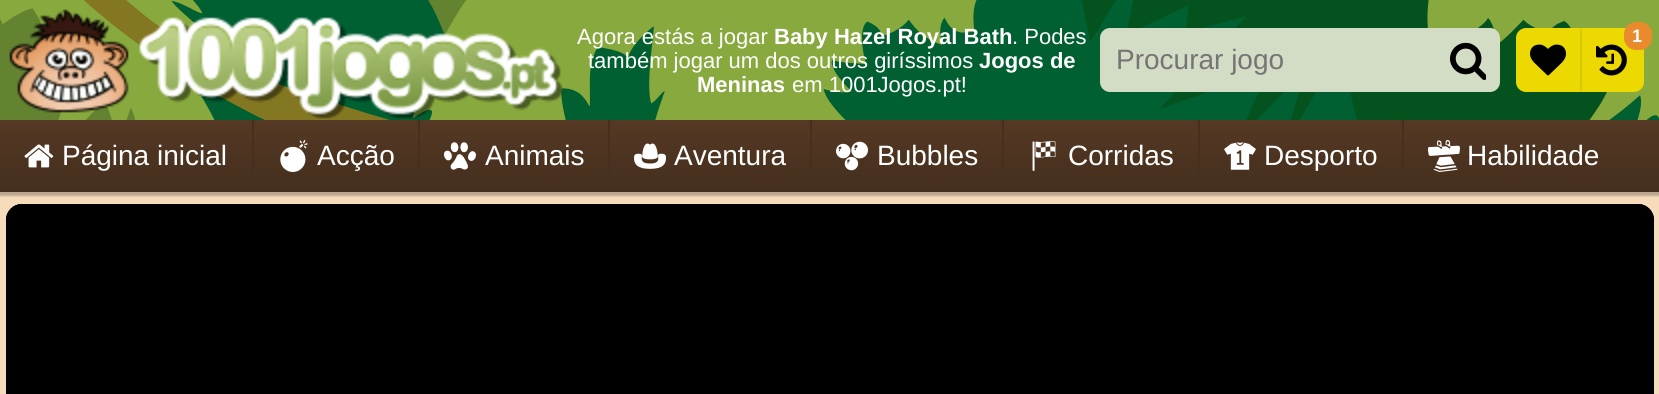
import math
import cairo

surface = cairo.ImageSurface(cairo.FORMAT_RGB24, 1659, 394)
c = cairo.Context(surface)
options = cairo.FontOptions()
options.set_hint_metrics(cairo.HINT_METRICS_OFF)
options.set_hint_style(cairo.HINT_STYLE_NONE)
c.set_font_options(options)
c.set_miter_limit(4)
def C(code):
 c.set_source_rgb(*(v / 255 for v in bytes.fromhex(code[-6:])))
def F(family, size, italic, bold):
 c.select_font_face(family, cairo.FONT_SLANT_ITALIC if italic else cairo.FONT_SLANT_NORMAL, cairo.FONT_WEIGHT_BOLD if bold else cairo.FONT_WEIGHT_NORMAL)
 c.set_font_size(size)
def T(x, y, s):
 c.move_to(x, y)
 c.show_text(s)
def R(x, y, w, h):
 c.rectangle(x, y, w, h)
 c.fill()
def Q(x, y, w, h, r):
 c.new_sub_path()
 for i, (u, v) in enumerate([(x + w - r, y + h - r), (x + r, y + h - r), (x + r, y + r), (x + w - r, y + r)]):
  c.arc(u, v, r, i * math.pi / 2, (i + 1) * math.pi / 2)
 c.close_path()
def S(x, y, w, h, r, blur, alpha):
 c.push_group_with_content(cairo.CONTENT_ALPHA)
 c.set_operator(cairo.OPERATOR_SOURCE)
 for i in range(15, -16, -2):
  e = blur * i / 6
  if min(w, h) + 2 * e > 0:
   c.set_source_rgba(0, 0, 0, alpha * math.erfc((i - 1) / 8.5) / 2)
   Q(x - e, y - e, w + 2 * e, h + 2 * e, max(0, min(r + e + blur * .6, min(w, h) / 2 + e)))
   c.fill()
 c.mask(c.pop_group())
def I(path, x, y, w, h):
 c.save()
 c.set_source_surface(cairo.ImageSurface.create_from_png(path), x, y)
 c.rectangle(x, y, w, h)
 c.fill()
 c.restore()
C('f7dcbc')
c.paint()
C('000000')
S(-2,120,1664,76,0,1,.25)
C('638331')
R(0,0,467,120)
I('1.png',0,0,1659,120)
I('2.png',9,9,554,110)
F('Liberation Sans',22,0,0)
C('ffffff')
T(577,44,'Agora estás a jogar')
F('Liberation Sans',22,0,1)
T(774,44,'Baby Hazel Royal Bath')
F('Liberation Sans',22,0,0)
T(1012,44,'. Podes')
T(588,68,'também jogar um dos outros giríssimos')
F('Liberation Sans',22,0,1)
T(979,68,'Jogos de')
T(697,92,'Meninas')
F('Liberation Sans',22,0,0)
T(792,92,'em 1001Jogos.pt!')
C('ecd901')
c.new_path()
c.move_to(1526,28)
c.line_to(1580,28)
c.line_to(1580,92)
c.line_to(1526,92)
c.curve_to(1520.5,92,1516,87.5,1516,82)
c.line_to(1516,38)
c.curve_to(1516,32.5,1520.5,28,1526,28)
c.close_path()
c.fill()
I('3.png',1530,44,36,32)
c.new_path()
c.move_to(1580,28)
c.line_to(1634,28)
c.curve_to(1639.5,28,1644,32.5,1644,38)
c.line_to(1644,82)
c.curve_to(1644,87.5,1639.5,92,1634,92)
c.line_to(1580,92)
c.close_path()
c.fill()
C('d8c601')
c.new_path()
c.move_to(1580,28)
c.line_to(1580,92)
c.line_to(1582,90)
c.line_to(1582,30)
c.close_path()
c.fill()
I('4.png',1596,44,31,32)
C('e98b2c')
Q(1624,22,28,28,12)
c.fill()
F('Liberation Sans',18,0,1)
C('ffffff')
T(1632,42,'1')
C('d3dcc4')
Q(1100,28,400,64,10)
c.fill()
F('Liberation Sans',28,0,0)
C('757575')
T(1116,69,'Procurar jogo')
I('5.png',1450,42,36,38)
gradient = cairo.LinearGradient(830,120,830,192)
gradient.add_color_stop_rgba(0,0.333,0.224,0.141,1)
gradient.add_color_stop_rgba(1,0.267,0.18,0.114,1)
c.set_source(gradient)
R(0,120,1659,72)
I('6.png',24,144,30,24)
C('ffffff')
T(62,165,'Página inicial')
C('462f1e')
R(252,120,2,53)
I('7.png',280,140,28,32)
C('ffffff')
T(317,165,'Acção')
C('462f1e')
R(418,120,2,53)
I('8.png',444,142,32,28)
C('ffffff')
T(485,165,'Animais')
C('462f1e')
R(608,120,2,53)
I('9.png',634,143,32,26)
C('ffffff')
T(674,165,'Aventura')
C('462f1e')
R(810,120,2,53)
I('10.png',836,141,32,30)
C('ffffff')
T(877,165,'Bubbles')
C('462f1e')
R(1002,120,2,53)
I('11.png',1032,141,24,30)
C('ffffff')
T(1068,165,'Corridas')
C('462f1e')
R(1198,120,2,53)
I('12.png',1224,142,32,28)
C('ffffff')
T(1264,165,'Desporto')
C('462f1e')
R(1402,120,2,53)
I('13.png',1428,140,32,32)
C('ffffff')
T(1467,165,'Habilidade')
C('000000')
c.new_path()
c.move_to(22,204)
c.line_to(1638,204)
c.curve_to(1647,204,1654,211,1654,220)
c.line_to(1654,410)
c.line_to(6,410)
c.line_to(6,220)
c.curve_to(6,211,13,204,22,204)
c.close_path()
c.fill()
I('14.png',6,204,1648,16)
surface.write_to_png('o.png')
